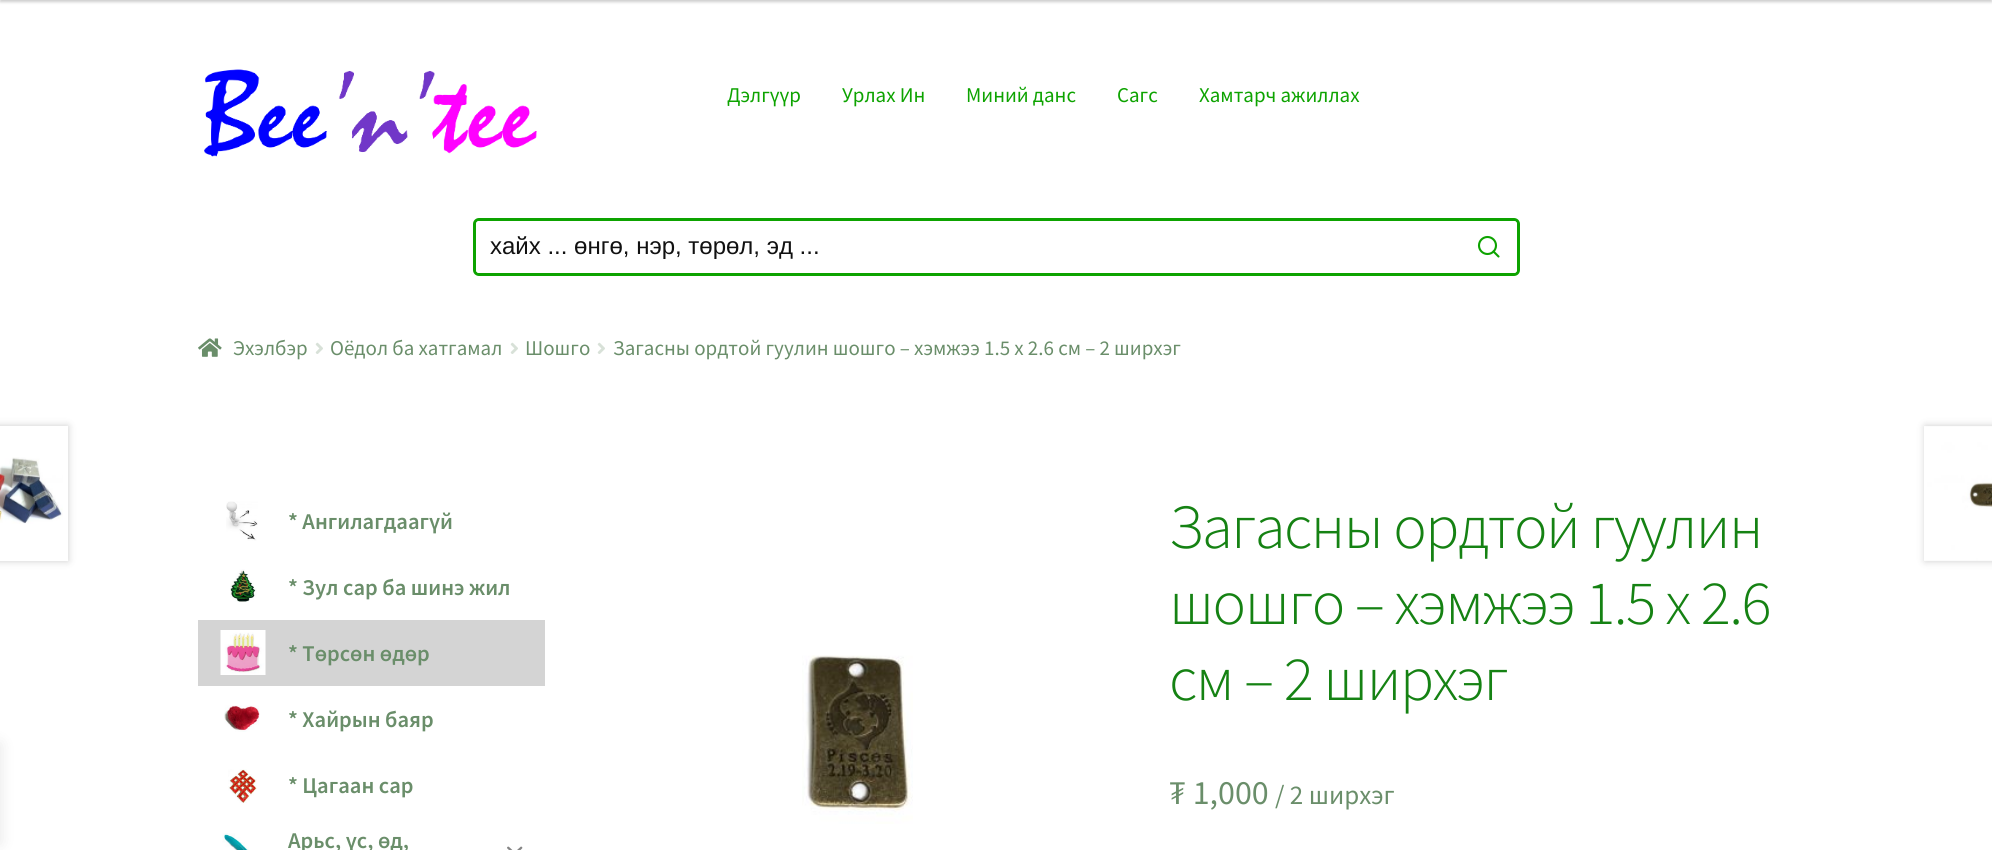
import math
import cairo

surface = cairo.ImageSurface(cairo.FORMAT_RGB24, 1992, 850)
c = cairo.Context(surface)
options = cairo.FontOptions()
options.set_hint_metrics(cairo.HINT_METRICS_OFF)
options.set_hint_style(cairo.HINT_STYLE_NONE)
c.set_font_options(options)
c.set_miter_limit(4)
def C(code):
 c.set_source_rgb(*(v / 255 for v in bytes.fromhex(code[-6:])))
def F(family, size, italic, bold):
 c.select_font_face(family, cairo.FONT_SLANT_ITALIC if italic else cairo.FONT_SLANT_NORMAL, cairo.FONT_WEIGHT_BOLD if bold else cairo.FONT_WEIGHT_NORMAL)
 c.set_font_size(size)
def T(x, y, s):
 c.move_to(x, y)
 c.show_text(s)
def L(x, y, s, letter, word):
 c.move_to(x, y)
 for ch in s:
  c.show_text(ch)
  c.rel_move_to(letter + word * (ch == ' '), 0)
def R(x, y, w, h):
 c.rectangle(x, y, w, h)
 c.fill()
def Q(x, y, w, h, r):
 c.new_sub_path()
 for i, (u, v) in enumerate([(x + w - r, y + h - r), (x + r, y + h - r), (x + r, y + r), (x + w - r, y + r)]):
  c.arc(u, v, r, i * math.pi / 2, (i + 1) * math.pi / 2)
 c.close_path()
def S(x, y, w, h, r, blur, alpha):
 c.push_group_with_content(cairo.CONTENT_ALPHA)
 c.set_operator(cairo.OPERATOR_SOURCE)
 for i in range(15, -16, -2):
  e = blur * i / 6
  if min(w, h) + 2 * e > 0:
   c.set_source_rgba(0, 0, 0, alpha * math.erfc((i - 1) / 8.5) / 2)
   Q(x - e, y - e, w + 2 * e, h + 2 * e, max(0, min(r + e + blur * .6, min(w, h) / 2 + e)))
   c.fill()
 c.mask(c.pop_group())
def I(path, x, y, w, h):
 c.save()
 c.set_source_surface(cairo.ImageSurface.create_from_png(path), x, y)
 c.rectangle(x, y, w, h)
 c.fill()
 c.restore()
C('ffffff')
c.paint()
C('000000')
S(-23,744,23,99,0,7.5,.1)
S(0,-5,1992,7,0,1.5,.2)
I('1.png',204,69,333,88)
F('Source Sans Pro',21,0,0)
C('0da300')
T(727,102,'Дэлгүүр')
T(842,102,'Урлах Ин')
T(966,102,'Миний данс')
T(1117,102,'Сагс')
T(1199,102,'Хамтарч ажиллах')
Q(474.5,219.5,1044,55,4.5)
c.set_line_width(3)
c.stroke()
C('ffffff')
c.new_path()
c.move_to(479,221)
c.line_to(1460,221)
c.line_to(1460,273)
c.line_to(479,273)
c.curve_to(477.5,273,476,271.5,476,270)
c.line_to(476,224)
c.curve_to(476,222.5,477.5,221,479,221)
c.close_path()
c.fill()
F('Liberation Sans',24,0,0)
C('111111')
T(490,254,'хайх ... өнгө, нэр, төрөл, эд ...')
C('ffffff')
c.new_path()
c.move_to(1460,221)
c.line_to(1514,221)
c.curve_to(1515.5,221,1517,222.5,1517,224)
c.line_to(1517,270)
c.curve_to(1517,271.5,1515.5,273,1514,273)
c.line_to(1460,273)
c.close_path()
c.fill()
c.arc(1487.5,245.5,8.5,0,2 * math.pi)
C('0da300')
c.set_line_width(2.1)
c.stroke()
c.new_path()
c.move_to(1498.5,256.5)
c.line_to(1493.5,251.5)
c.set_line_cap(cairo.LINE_CAP_ROUND)
c.set_line_join(cairo.LINE_JOIN_ROUND)
c.stroke()
I('2.png',198,338,24,19)
F('Source Sans Pro',21,0,0)
C('6a8e6a')
T(233,355,'Эхэлбэр')
I('3.png',315,342,8,12)
T(330,355,'Оёдол ба хатгамал')
I('3.png',510,342,8,12)
T(525,355,'Шошго')
I('3.png',597,342,8,12)
T(613,355,'Загасны ордтой гуулин шошго – хэмжээ 1.5 x 2.6 см – 2 ширхэг')
I('4.png',226,501,32,40)
F('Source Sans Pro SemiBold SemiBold',22.5,0,0)
T(288,529,'* Ангилагдаагүй')
I('5.png',230,569,27,33)
T(288,595,'* Зул сар ба шинэ жил')
C('d4d4d4')
R(198,620,347,66)
I('6.png',220,630,46,45)
C('6a8e6a')
T(288,661,'* Төрсөн өдөр')
I('7.png',224,705,36,27)
T(288,727,'* Хайрын баяр')
I('8.png',228,769,29,34)
T(288,793,'* Цагаан сар')
I('9.png',222,833,27,17)
T(288,848,'Арьс, үс, өд,')
I('10.png',507,846,16,4)
C('000000')
S(-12,426,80,135,0,4,.2)
C('ffffff')
R(0,426,68,135)
I('11.png',0,457,63,67)
C('000000')
S(1925,426,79,135,0,4,.2)
I('12.png',1924,426,68,135)
I('13.png',802,655,111,169)
F('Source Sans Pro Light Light',62.75,0,0)
C('158213')
L(1169,548,'Загасны ордтой гуулин',-1.5,0)
L(1169,624,'шошго – хэмжээ 1.5 x 2.6',-1.5,0)
L(1169,700,'см – 2 ширхэг',-1.5,0)
F('Source Sans Pro',34,0,0)
C('6a8e6a')
T(1169,804,'₮ 1,000')
F('Source Sans Pro',27,0,0)
T(1275,804,'/ 2 ширхэг')
surface.write_to_png('o.png')
